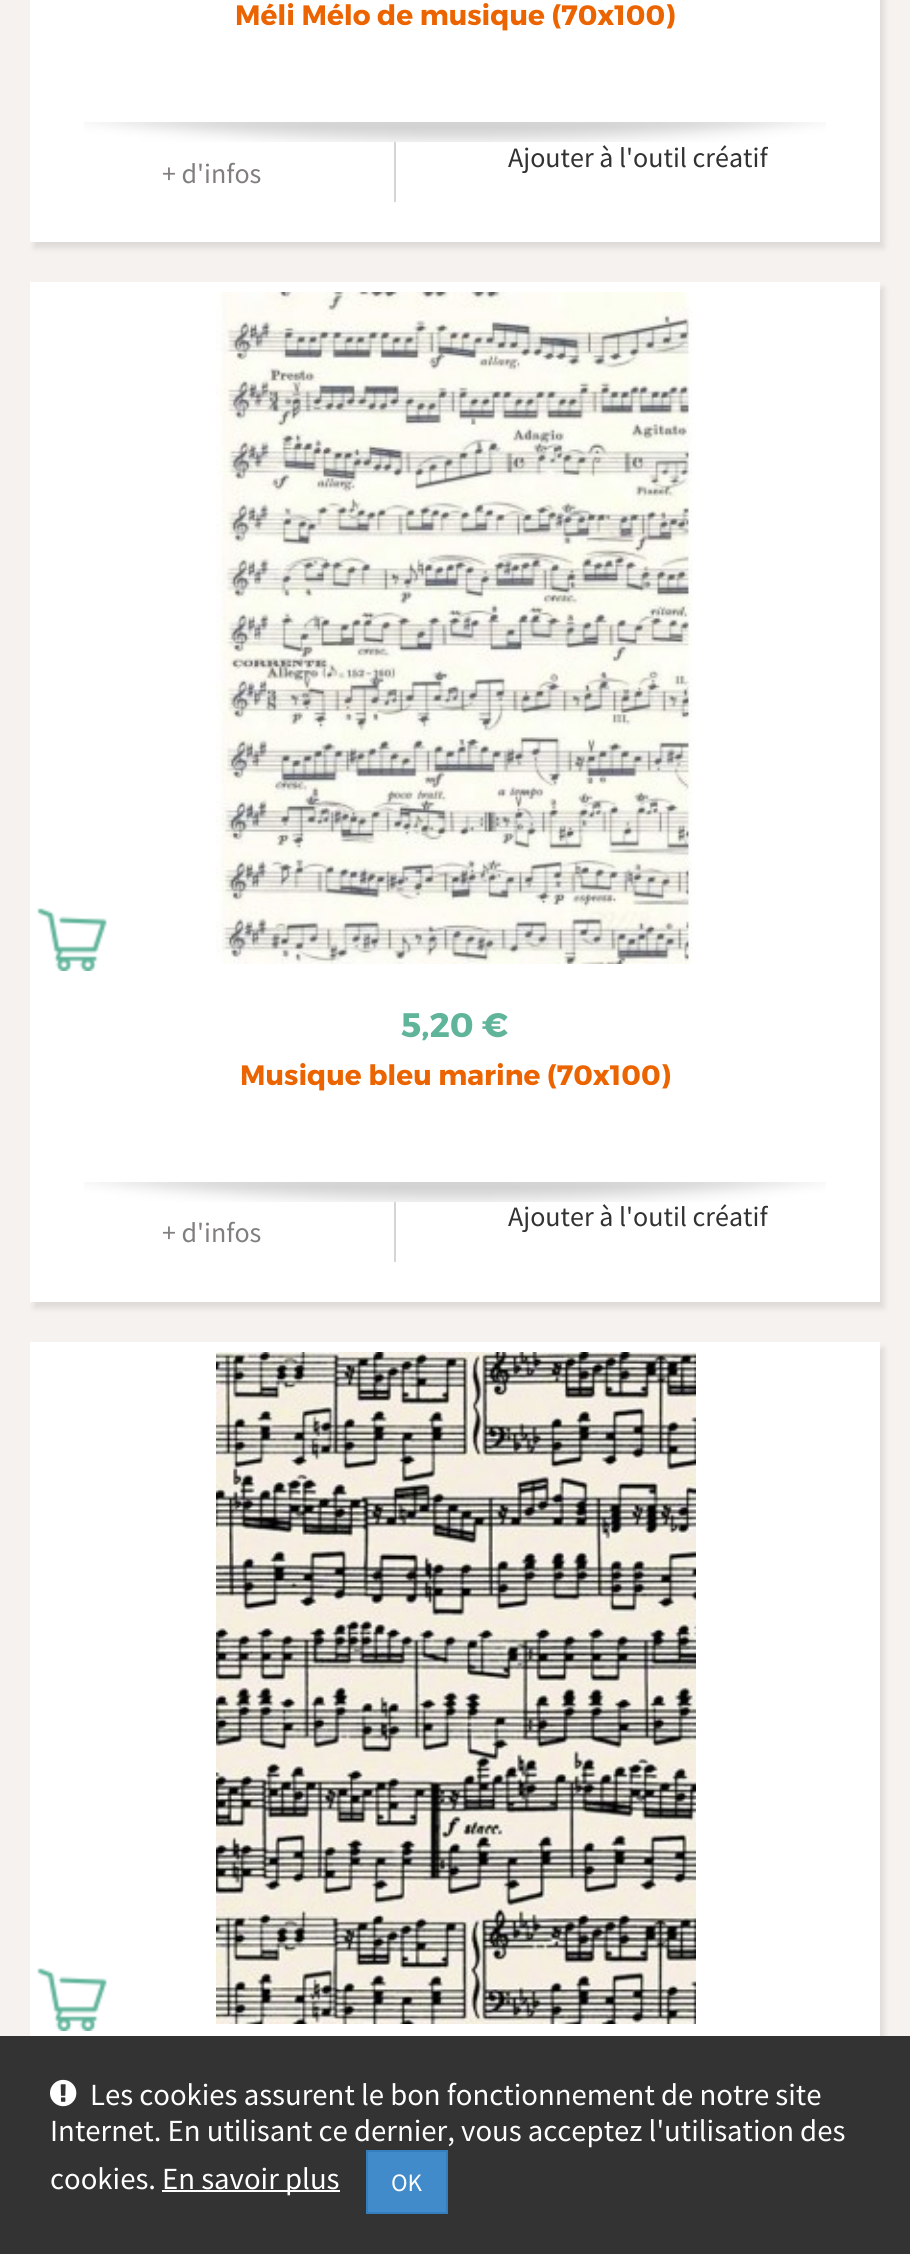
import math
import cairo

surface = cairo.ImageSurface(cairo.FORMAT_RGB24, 910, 2254)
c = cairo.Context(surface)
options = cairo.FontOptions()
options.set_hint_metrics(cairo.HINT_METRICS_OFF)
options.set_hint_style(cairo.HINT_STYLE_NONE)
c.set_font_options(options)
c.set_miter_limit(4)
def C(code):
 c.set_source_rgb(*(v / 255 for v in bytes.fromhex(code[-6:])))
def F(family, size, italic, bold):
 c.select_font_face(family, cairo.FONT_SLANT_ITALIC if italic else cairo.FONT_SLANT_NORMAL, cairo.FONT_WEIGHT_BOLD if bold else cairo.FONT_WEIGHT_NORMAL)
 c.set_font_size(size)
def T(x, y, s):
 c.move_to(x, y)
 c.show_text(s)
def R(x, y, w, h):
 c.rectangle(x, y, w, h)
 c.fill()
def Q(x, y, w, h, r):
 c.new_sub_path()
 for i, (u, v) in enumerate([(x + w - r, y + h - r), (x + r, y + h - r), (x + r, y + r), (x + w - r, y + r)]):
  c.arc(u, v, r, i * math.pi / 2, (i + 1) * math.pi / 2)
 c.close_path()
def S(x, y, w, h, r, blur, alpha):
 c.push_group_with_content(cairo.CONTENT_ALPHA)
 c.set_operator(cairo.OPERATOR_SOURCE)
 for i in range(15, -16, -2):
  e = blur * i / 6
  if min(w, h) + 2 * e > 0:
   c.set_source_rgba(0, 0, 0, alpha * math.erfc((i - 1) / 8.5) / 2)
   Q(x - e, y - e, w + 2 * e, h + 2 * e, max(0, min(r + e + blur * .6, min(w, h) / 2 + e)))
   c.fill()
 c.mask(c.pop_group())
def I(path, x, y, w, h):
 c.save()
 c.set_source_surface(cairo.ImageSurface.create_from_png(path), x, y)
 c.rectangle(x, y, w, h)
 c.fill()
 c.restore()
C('f5f2ef')
c.paint()
C('000000')
S(34,-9,850,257,0,3,.1)
C('ffffff')
R(30,0,850,242)
F('Montserrat',28,0,1)
C('eb6400')
T(235,25,'Méli Mélo de musique (70x100)')
I('1.png',84,122,742,20)
C('d7d5d2')
R(394,142,2,60)
F('Source Sans Pro',28,0,0)
C('817e7e')
T(162,183,'+ d\'infos')
C('323232')
T(508,167,'Ajouter à l\'outil créatif')
C('000000')
S(34,288,850,1020,0,3,.1)
C('ffffff')
R(30,282,850,1020)
I('2.png',37,908,70,63)
I('3.png',216,292,477,672)
F('Montserrat',34,0,1)
C('60b49a')
T(401,1037,'5,20 €')
F('Montserrat',28,0,1)
C('eb6400')
T(240,1085,'Musique bleu marine (70x100)')
I('1.png',84,1182,742,20)
C('d7d5d2')
R(394,1202,2,60)
F('Source Sans Pro',28,0,0)
C('817e7e')
T(162,1242,'+ d\'infos')
C('323232')
T(508,1226,'Ajouter à l\'outil créatif')
C('000000')
S(34,1348,850,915,0,3,.1)
C('ffffff')
R(30,1342,850,694)
I('2.png',37,1968,70,63)
I('4.png',216,1352,480,672)
C('333333')
R(0,2036,910,218)
I('5.png',50,2079,27,28)
F('Source Sans Pro',30.75,0,0)
C('ffffff')
T(90,2105,'Les cookies assurent le bon fonctionnement de notre site')
T(50,2141,'Internet. En utilisant ce dernier, vous acceptez l\'utilisation des')
T(50,2189,'cookies.')
R(162,2190,178,2)
T(162,2189,'En savoir plus')
C('428bca')
c.rectangle(367,2151,80,62)
c.fill_preserve()
C('357ebd')
c.stroke()
F('Source Sans Pro',25,0,0)
C('ffffff')
T(391,2191,'OK')
surface.write_to_png('o.png')
